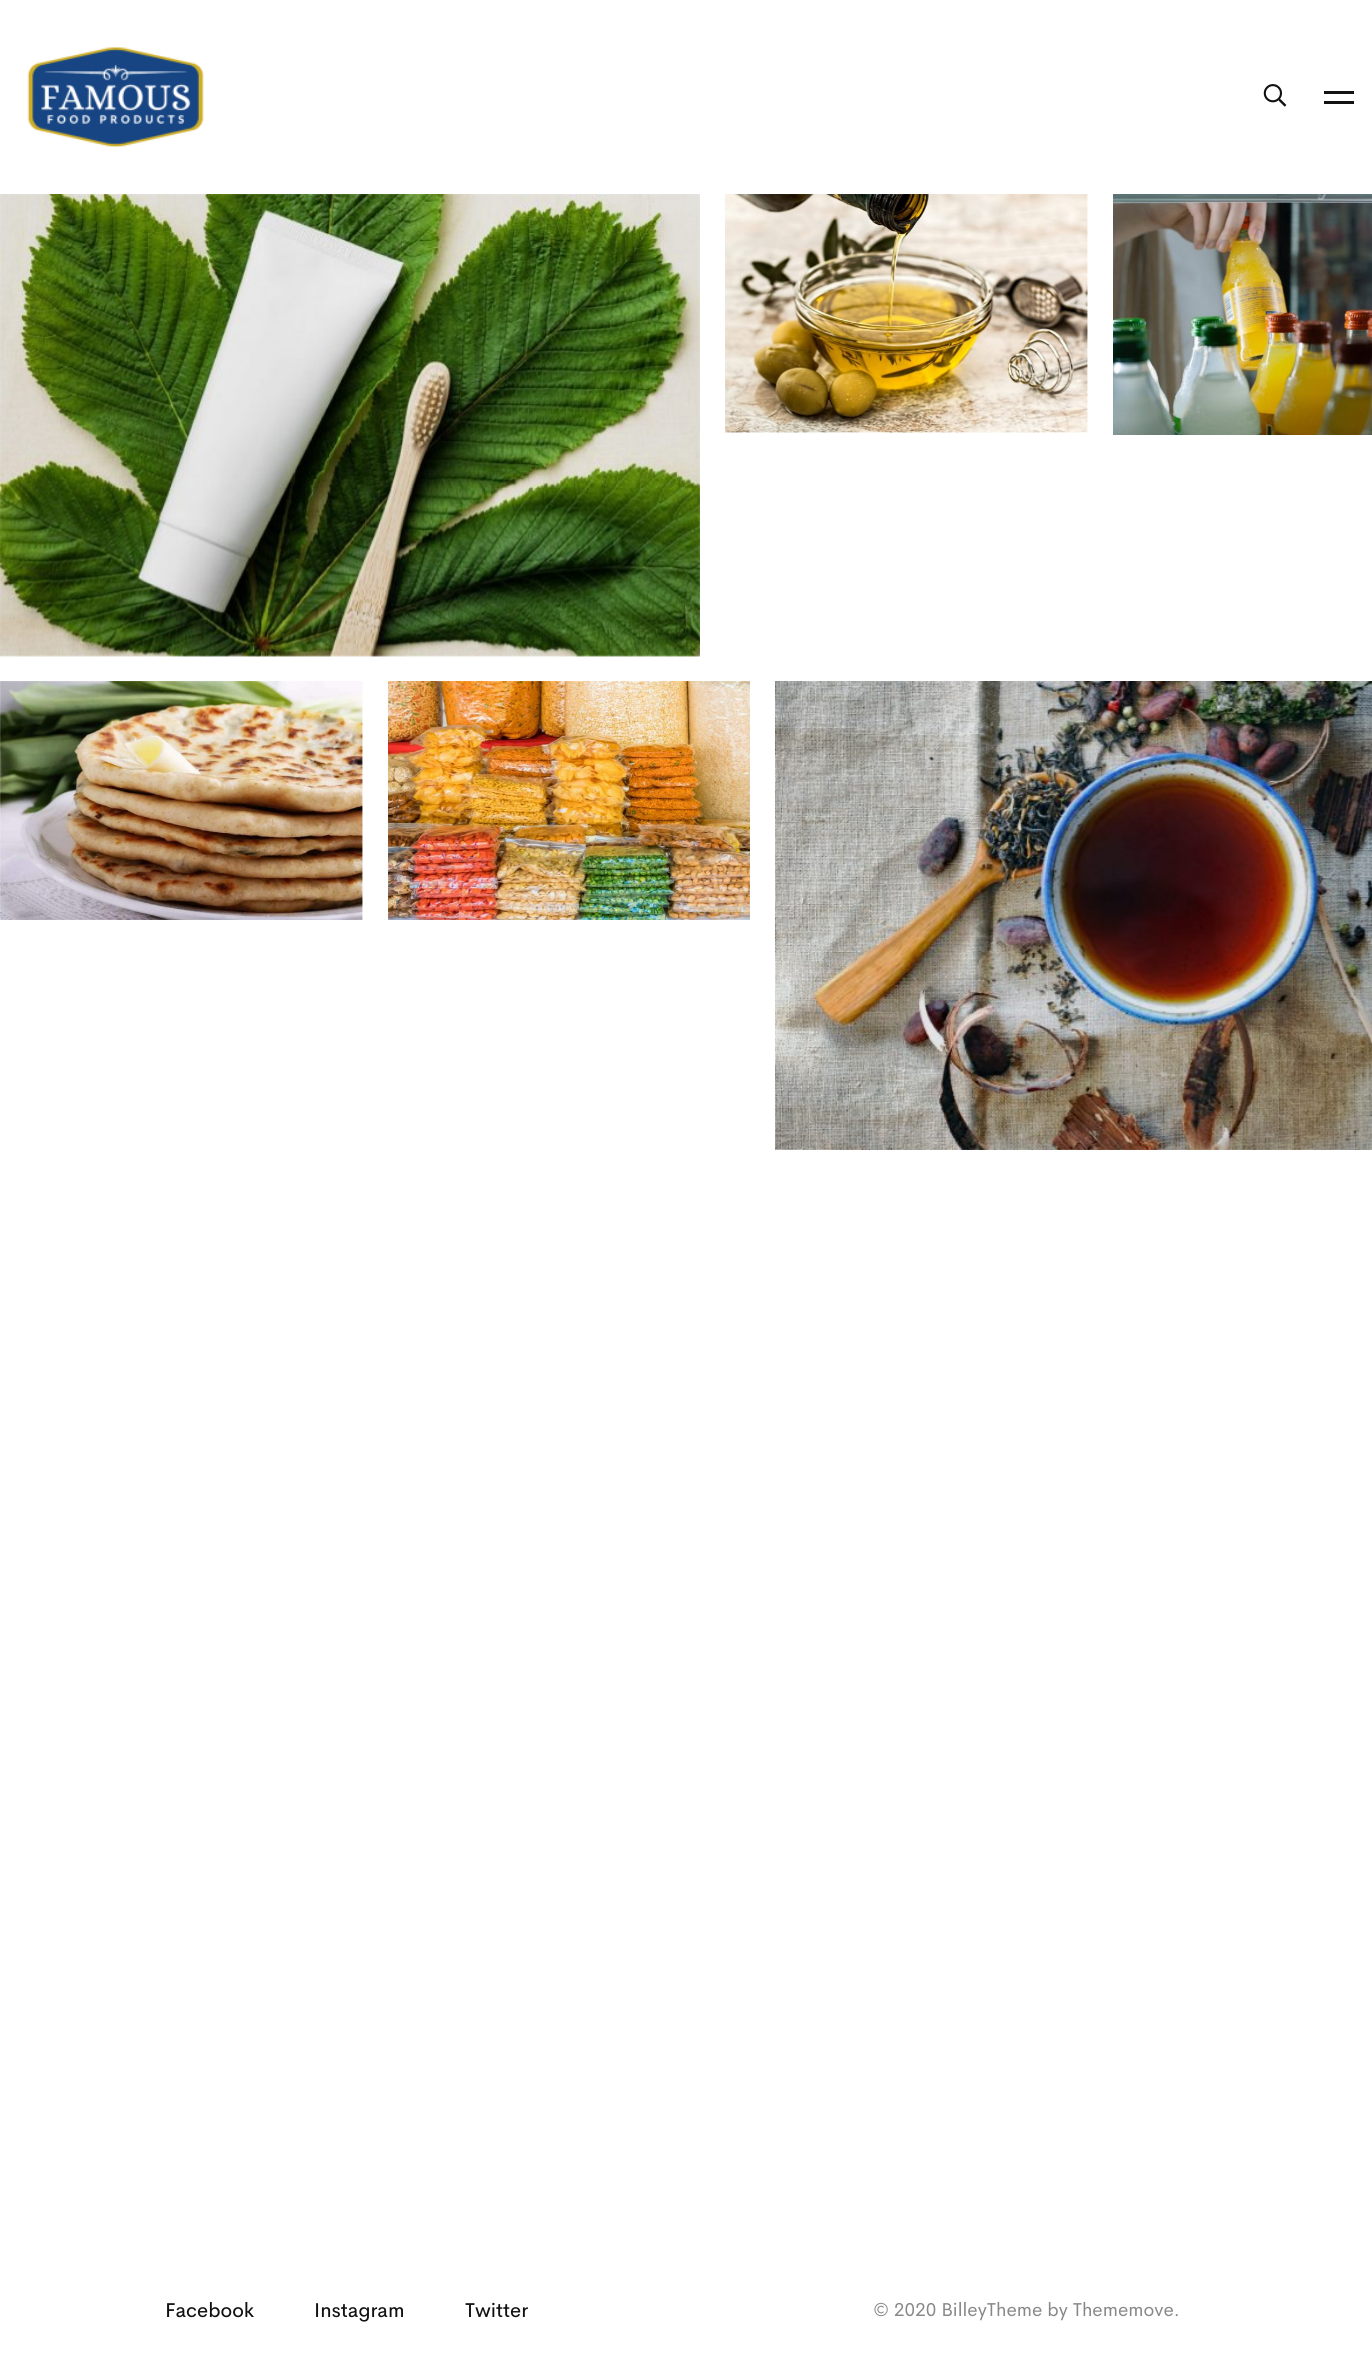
import math
import cairo

surface = cairo.ImageSurface(cairo.FORMAT_RGB24, 1372, 2358)
c = cairo.Context(surface)
options = cairo.FontOptions()
options.set_hint_metrics(cairo.HINT_METRICS_OFF)
options.set_hint_style(cairo.HINT_STYLE_NONE)
c.set_font_options(options)
c.set_miter_limit(4)
def C(code):
 c.set_source_rgb(*(v / 255 for v in bytes.fromhex(code[-6:])))
def F(family, size, italic, bold):
 c.select_font_face(family, cairo.FONT_SLANT_ITALIC if italic else cairo.FONT_SLANT_NORMAL, cairo.FONT_WEIGHT_BOLD if bold else cairo.FONT_WEIGHT_NORMAL)
 c.set_font_size(size)
def T(x, y, s):
 c.move_to(x, y)
 c.show_text(s)
def R(x, y, w, h):
 c.rectangle(x, y, w, h)
 c.fill()
def I(path, x, y, w, h):
 c.save()
 c.set_source_surface(cairo.ImageSurface.create_from_png(path), x, y)
 c.rectangle(x, y, w, h)
 c.fill()
 c.restore()
C('ffffff')
c.paint()
I('1.png',27,47,177,101)
I('2.png',1263,84,24,23)
C('131313')
R(1324,91,30,3)
R(1324,101,30,3)
I('3.png',0,194,700,463)
I('4.png',725,194,363,239)
I('5.png',1113,194,259,241)
I('6.png',0,681,363,239)
I('7.png',388,681,362,239)
I('8.png',775,681,597,469)
F('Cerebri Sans',20,0,0)
C('111111')
T(165,2317,'Facebook')
T(314,2317,'Instagram')
T(465,2317,'Twitter')
F('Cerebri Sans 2',18.75,0,0)
C('888888')
T(873,2316,'© 2020 BilleyTheme by Thememove.')
surface.write_to_png('o.png')
